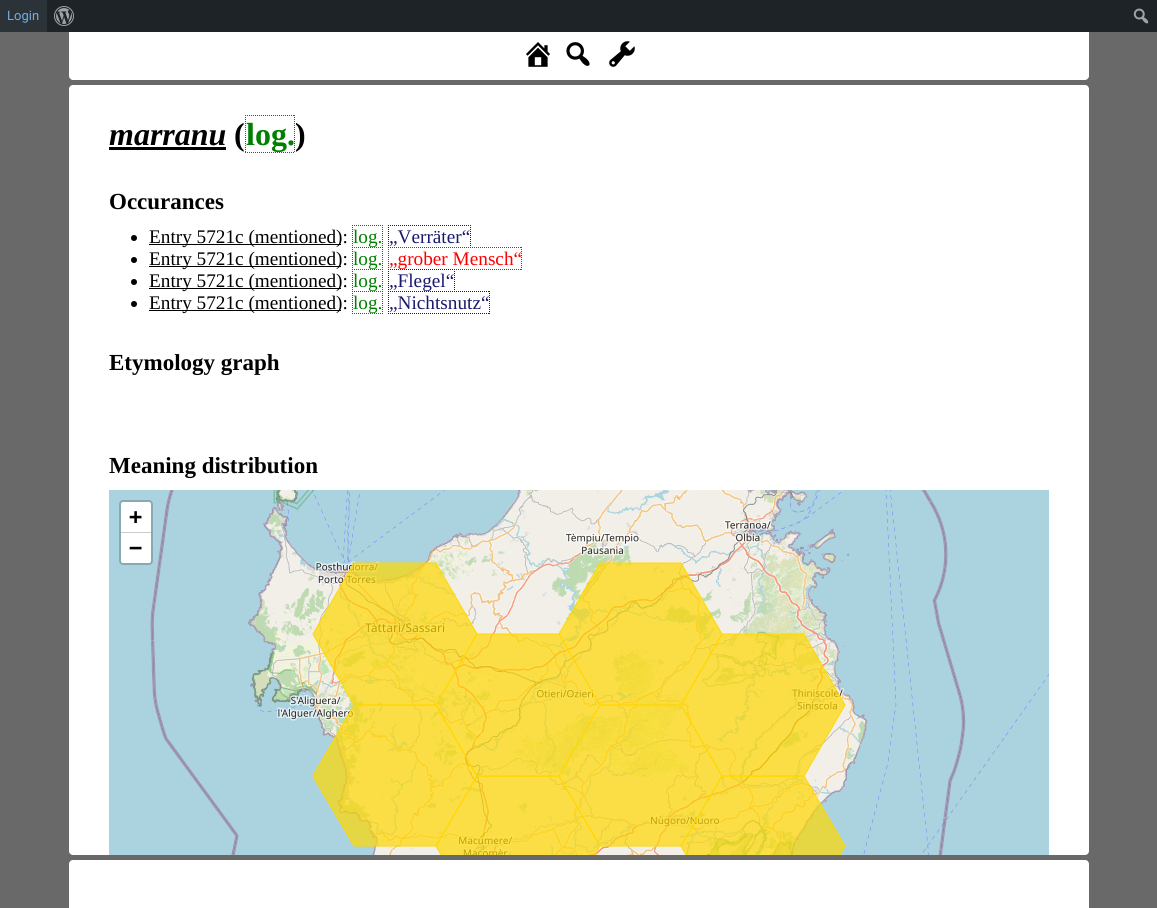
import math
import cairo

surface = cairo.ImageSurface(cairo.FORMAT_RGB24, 1157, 908)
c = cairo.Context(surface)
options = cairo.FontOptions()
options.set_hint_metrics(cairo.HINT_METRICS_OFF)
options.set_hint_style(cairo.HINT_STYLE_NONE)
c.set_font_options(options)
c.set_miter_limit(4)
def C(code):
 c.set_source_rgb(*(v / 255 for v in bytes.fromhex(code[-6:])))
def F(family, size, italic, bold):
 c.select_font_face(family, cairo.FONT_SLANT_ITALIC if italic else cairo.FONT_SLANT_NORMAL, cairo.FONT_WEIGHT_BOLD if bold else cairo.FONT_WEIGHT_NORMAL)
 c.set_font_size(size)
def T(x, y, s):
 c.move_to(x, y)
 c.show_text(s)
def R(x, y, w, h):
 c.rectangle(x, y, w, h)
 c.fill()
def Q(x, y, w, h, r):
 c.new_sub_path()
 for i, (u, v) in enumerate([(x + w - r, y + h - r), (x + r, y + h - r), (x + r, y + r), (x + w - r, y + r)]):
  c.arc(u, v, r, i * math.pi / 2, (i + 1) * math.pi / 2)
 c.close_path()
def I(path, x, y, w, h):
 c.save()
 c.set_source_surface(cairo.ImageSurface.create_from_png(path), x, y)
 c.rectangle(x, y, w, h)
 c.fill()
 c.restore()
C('696969')
c.paint()
C('1d2327')
R(47,0,1110,32)
C('2c3338')
R(0,0,47,32)
F('Roboto',13,0,0)
C('72aee6')
T(7,20,'Login')
I('1.png',54,6,20,20)
I('2.png',1133,8,16,16)
C('ffffff')
c.new_path()
c.move_to(69,32)
c.line_to(1089,32)
c.line_to(1089,76)
c.curve_to(1089,78,1087,80,1085,80)
c.line_to(73,80)
c.curve_to(71,80,69,78,69,76)
c.close_path()
c.fill()
I('3.png',526,42,24,25)
I('4.png',566,42,24,24)
I('5.png',609,41,26,26)
Q(69,85,1020,770,4)
c.fill()
F('Liberation Serif',32,1,1)
C('000000')
T(109,145,'marranu')
R(109,147,117,3)
F('Liberation Serif',32,0,1)
T(234,145,'(')
c.new_path()
c.move_to(245,115.5)
c.line_to(295,115.5)
c.move_to(294.5,115)
c.line_to(294.5,153)
c.move_to(245,152.5)
c.line_to(295,152.5)
c.move_to(245.5,115)
c.line_to(245.5,153)
C('008000')
c.set_line_width(1)
c.set_dash([1,1])
c.stroke()
T(246,145,'log.')
C('000000')
T(295,145,')')
F('Liberation Serif',23,0,1)
T(109,209,'Occurances')
c.new_path()
c.arc(134,238,3,0,2 * math.pi)
c.fill()
R(149,244,192,1)
F('Liberation Serif',19.25,0,0)
T(149,243,'Entry 5721c (mentioned):')
c.new_path()
c.move_to(352,225.5)
c.line_to(383,225.5)
c.move_to(382.5,225)
c.line_to(382.5,248)
c.move_to(352,247.5)
c.line_to(383,247.5)
c.move_to(352.5,225)
c.line_to(352.5,248)
C('008000')
c.stroke()
T(353,243,'log.')
C('191970')
T(389,243,'„Verräter“')
c.new_path()
c.move_to(388,225.5)
c.line_to(471,225.5)
c.stroke()
c.new_path()
c.move_to(470.5,225)
c.line_to(470.5,248)
c.stroke()
c.new_path()
c.move_to(388.5,225)
c.line_to(388.5,248)
c.stroke()
C('000000')
c.arc(134,260,3,0,2 * math.pi)
c.fill()
R(149,266,192,1)
T(149,265,'Entry 5721c (mentioned):')
c.new_path()
c.move_to(382.5,247)
c.line_to(382.5,270)
c.move_to(352,269.5)
c.line_to(383,269.5)
c.move_to(352.5,247)
c.line_to(352.5,270)
C('008000')
c.stroke()
T(353,265,'log.')
c.new_path()
c.move_to(388,269.5)
c.line_to(522,269.5)
C('ff0000')
c.stroke()
T(389,265,'„grober Mensch“')
c.new_path()
c.move_to(388,247.5)
c.line_to(522,247.5)
c.stroke()
c.new_path()
c.move_to(521.5,247)
c.line_to(521.5,270)
c.stroke()
c.new_path()
c.move_to(388.5,247)
c.line_to(388.5,270)
c.stroke()
C('000000')
c.arc(134,282,3,0,2 * math.pi)
c.fill()
R(149,288,192,1)
T(149,287,'Entry 5721c (mentioned):')
c.new_path()
c.move_to(382.5,269)
c.line_to(382.5,292)
c.move_to(352,291.5)
c.line_to(383,291.5)
c.move_to(352.5,269)
c.line_to(352.5,292)
C('008000')
c.stroke()
T(353,287,'log.')
C('191970')
T(389,287,'„Flegel“')
c.new_path()
c.move_to(388,269.5)
c.line_to(455,269.5)
c.stroke()
c.new_path()
c.move_to(454.5,269)
c.line_to(454.5,292)
c.stroke()
c.new_path()
c.move_to(388.5,269)
c.line_to(388.5,292)
c.stroke()
C('000000')
c.arc(134,304,3,0,2 * math.pi)
c.fill()
R(149,310,192,1)
T(149,309,'Entry 5721c (mentioned):')
c.new_path()
c.move_to(382.5,291)
c.line_to(382.5,314)
c.move_to(352,313.5)
c.line_to(383,313.5)
c.move_to(352.5,291)
c.line_to(352.5,314)
C('008000')
c.stroke()
T(353,309,'log.')
C('191970')
T(389,309,'„Nichtsnutz“')
c.new_path()
c.move_to(388,291.5)
c.line_to(490,291.5)
c.stroke()
c.new_path()
c.move_to(489.5,291)
c.line_to(489.5,314)
c.stroke()
c.new_path()
c.move_to(388,313.5)
c.line_to(490,313.5)
c.stroke()
c.new_path()
c.move_to(388.5,291)
c.line_to(388.5,314)
c.stroke()
F('Liberation Serif',23,0,1)
C('000000')
T(109,370,'Etymology graph')
T(109,473,'Meaning distribution')
I('6.png',109,490,251,14)
I('7.png',360,490,256,14)
I('8.png',616,490,256,14)
I('9.png',872,490,177,14)
I('10.png',109,504,251,256)
I('11.png',360,504,256,256)
I('12.png',616,504,256,256)
I('13.png',872,504,177,256)
I('14.png',109,760,251,95)
I('15.png',360,760,256,95)
I('16.png',616,760,256,95)
I('17.png',872,760,177,95)
I('18.png',312,562,534,293)
Q(120,501,32,63,3)
C('88a9b2')
c.set_line_width(2)
c.set_dash([])
c.stroke()
C('ffffff')
c.new_path()
c.move_to(123,502)
c.line_to(149,502)
c.curve_to(150,502,151,503,151,504)
c.line_to(151,533)
c.line_to(121,533)
c.line_to(121,504)
c.curve_to(121,503,122,502,123,502)
c.close_path()
c.fill()
C('cccccc')
R(121,532,30,1)
F('DejaVu Sans Mono',22,0,1)
C('000000')
T(129,524,'+')
C('ffffff')
c.new_path()
c.move_to(121,533)
c.line_to(151,533)
c.line_to(151,561)
c.curve_to(151,562,150,563,149,563)
c.line_to(123,563)
c.curve_to(122,563,121,562,121,561)
c.close_path()
c.fill()
C('000000')
T(129,555,'−')
C('ffffff')
Q(69,860,1020,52,4)
c.fill()
surface.write_to_png('o.png')
